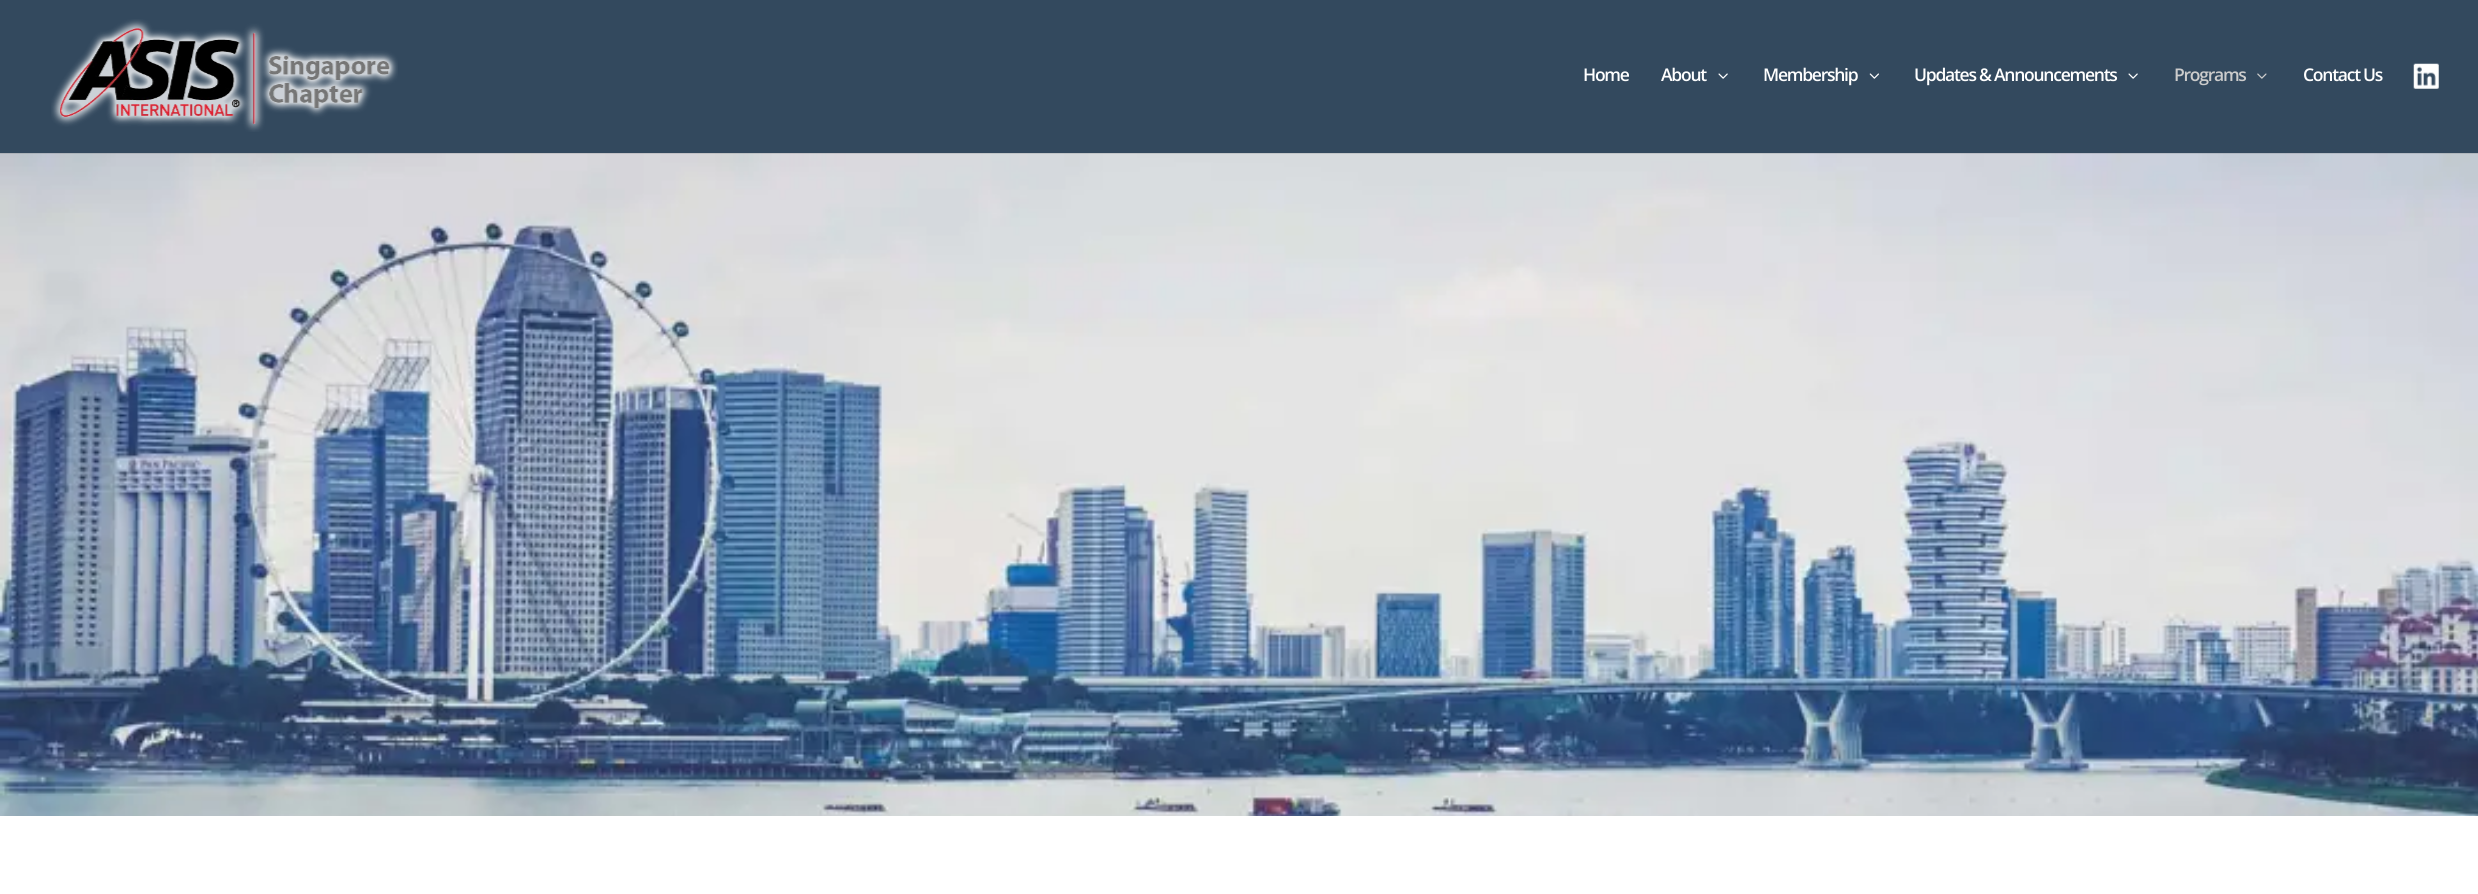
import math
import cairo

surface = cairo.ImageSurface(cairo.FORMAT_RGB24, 2478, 894)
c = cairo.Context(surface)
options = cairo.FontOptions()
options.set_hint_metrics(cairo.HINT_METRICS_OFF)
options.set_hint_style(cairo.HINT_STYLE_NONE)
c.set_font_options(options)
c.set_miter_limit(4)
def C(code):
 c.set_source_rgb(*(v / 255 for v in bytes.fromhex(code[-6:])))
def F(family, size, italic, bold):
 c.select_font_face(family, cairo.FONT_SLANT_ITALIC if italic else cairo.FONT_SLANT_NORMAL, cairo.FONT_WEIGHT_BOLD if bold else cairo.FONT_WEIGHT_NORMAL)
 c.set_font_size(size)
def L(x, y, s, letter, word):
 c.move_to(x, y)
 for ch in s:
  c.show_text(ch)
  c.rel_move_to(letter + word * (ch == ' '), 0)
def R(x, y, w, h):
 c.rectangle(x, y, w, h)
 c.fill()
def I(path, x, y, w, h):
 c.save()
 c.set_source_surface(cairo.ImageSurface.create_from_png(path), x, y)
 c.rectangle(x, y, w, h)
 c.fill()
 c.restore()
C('ffffff')
c.paint()
I('6.png',0,153,2478,663)
c.set_source_rgba(0,0,0,0.1)
c.new_path()
c.move_to(0,152)
c.line_to(0,154)
c.line_to(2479,154)
c.line_to(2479,1)
c.line_to(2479,152)
c.close_path()
c.fill()
C('33495e')
R(0,0,2478,153)
I('1.png',51,19,347,113)
F('Open Sans SemiBold',17.5,0,0)
C('ffffff')
L(1583,81,'Home',-1.25,0)
L(1661,81,'About',-1.25,0)
I('2.png',1718,73,10,6)
L(1763,81,'Membership',-1.25,0)
I('3.png',1869,73,10,6)
L(1914,81,'Updates & Announcements',-1.25,0)
I('2.png',2128,73,10,6)
C('cccccc')
L(2174,81,'Programs',-1.25,0)
I('4.png',2257,73,10,6)
C('ffffff')
L(2303,81,'Contact Us',-1.25,0)
I('5.png',2413,63,26,26)
surface.write_to_png('o.png')
